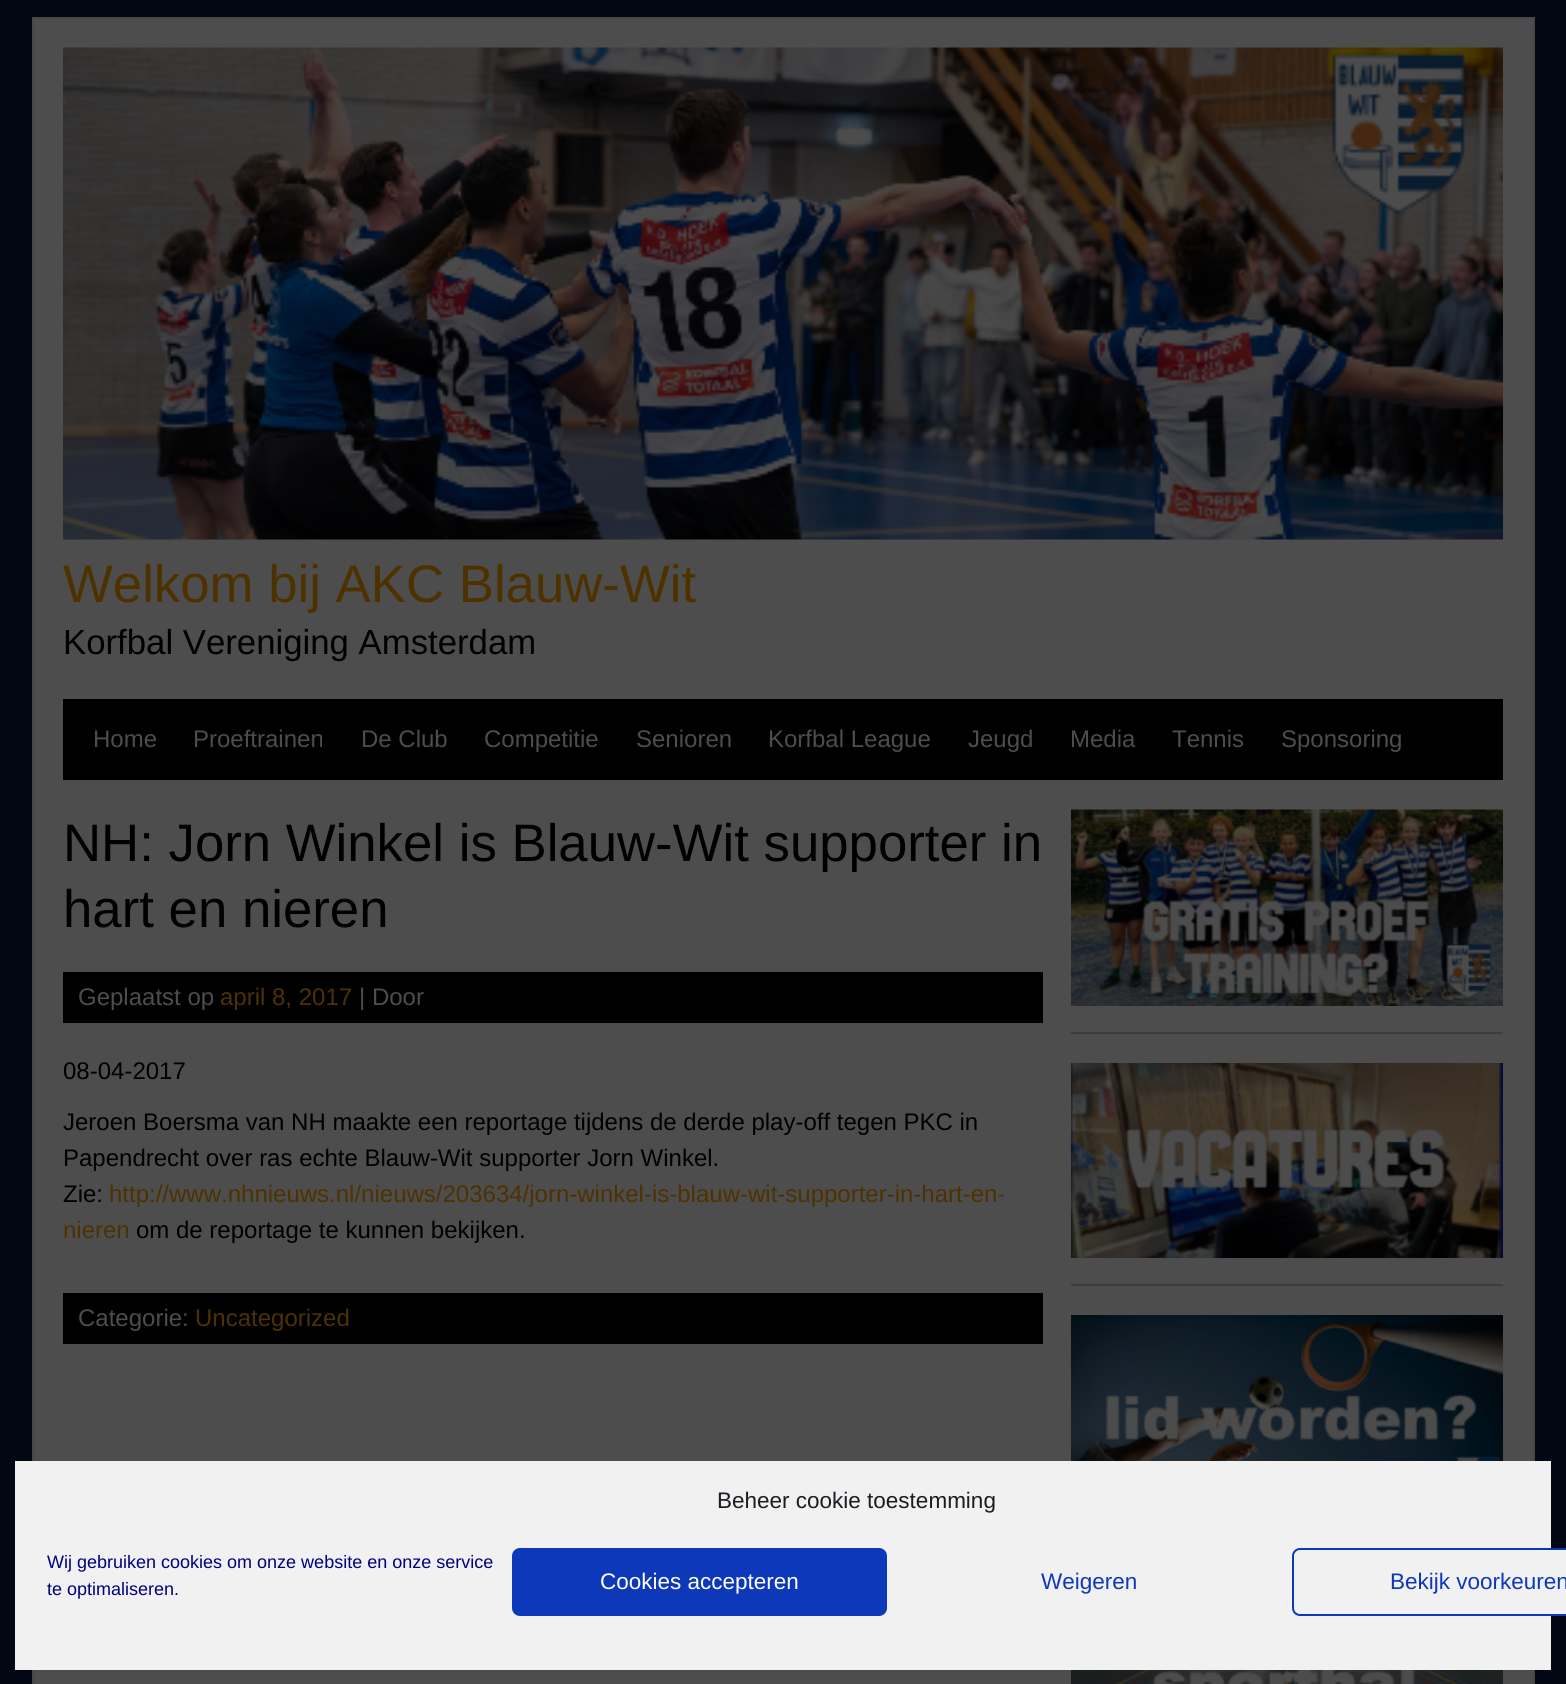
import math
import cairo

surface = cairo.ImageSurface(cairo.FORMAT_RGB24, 1566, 1684)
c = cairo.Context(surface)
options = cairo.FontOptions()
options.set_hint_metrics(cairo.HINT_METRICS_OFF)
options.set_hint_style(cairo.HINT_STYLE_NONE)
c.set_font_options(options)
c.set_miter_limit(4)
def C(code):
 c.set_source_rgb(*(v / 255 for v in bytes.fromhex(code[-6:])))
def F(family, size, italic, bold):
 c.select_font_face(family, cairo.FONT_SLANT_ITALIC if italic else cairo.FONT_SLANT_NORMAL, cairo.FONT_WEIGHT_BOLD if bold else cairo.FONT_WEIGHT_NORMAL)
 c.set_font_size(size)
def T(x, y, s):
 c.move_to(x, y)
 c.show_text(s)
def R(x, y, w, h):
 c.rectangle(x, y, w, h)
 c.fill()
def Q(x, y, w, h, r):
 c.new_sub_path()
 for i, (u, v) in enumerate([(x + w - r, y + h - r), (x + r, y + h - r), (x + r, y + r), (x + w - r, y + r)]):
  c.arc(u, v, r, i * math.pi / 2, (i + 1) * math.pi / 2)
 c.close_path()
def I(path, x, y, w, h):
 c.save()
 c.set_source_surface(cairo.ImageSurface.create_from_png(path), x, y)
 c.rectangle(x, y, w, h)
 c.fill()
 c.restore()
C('030714')
c.paint()
C('4d4d4d')
c.rectangle(33,18,1501,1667)
c.fill_preserve()
C('474747')
c.stroke()
I('1.png',63,47,1440,493)
F('Liberation Sans',52.75,0,0)
C('4d3200')
T(63,602,'Welkom bij AKC Blauw-Wit')
F('Liberation Sans',34.75,0,0)
C('000000')
T(63,654,'Korfbal Vereniging Amsterdam')
R(63,699,1440,81)
F('Liberation Sans',24,0,0)
C('4d4d4d')
T(93,747,'Home')
T(193,747,'Proeftrainen')
T(361,747,'De Club')
T(484,747,'Competitie')
T(636,747,'Senioren')
T(768,747,'Korfbal League')
T(968,747,'Jeugd')
T(1070,747,'Media')
T(1172,747,'Tennis')
T(1281,747,'Sponsoring')
F('Liberation Sans',52.75,0,0)
C('000000')
T(63,861,'NH: Jorn Winkel is Blauw-Wit supporter in')
T(63,927,'hart en nieren')
R(63,972,980,51)
F('Liberation Sans',24,0,0)
C('4d4d4d')
T(78,1005,'Geplaatst op')
C('4d3200')
T(220,1005,'april 8, 2017')
C('4d4d4d')
T(359,1005,'| Door')
C('000000')
T(63,1079,'08-04-2017')
T(63,1130,'Jeroen Boersma van NH maakte een reportage tijdens de derde play-off tegen PKC in')
T(63,1166,'Papendrecht over ras echte Blauw-Wit supporter Jorn Winkel.')
T(63,1202,'Zie:')
C('4d3200')
T(109,1202,'http://www.nhnieuws.nl/nieuws/203634/jorn-winkel-is-blauw-wit-supporter-in-hart-en-')
T(63,1238,'nieren')
C('000000')
T(136,1238,'om de reportage te kunnen bekijken.')
R(63,1293,980,51)
C('4d4d4d')
T(78,1326,'Categorie:')
C('4d3200')
T(195,1326,'Uncategorized')
C('3d3d3d')
R(1071,1032,432,2)
I('2.png',1071,809,432,197)
R(1071,1284,432,2)
I('3.png',1071,1063,432,195)
I('4.png',1071,1315,432,146)
I('5.png',1071,1670,432,14)
C('f1f1f1')
R(15,1461,1536,209)
F('Liberation Sans',22.5,0,0)
C('191e23')
T(717,1508,'Beheer cookie toestemming')
F('Liberation Sans',18,0,0)
C('000080')
T(47,1568,'Wij gebruiken cookies om onze website en onze service')
T(47,1595,'te optimaliseren.')
C('0d38ba')
Q(513,1549,373,66,7)
c.fill_preserve()
c.stroke()
F('Liberation Sans',22.5,0,0)
C('ffffff')
T(600,1589,'Cookies accepteren')
C('0d38ba')
T(1041,1589,'Weigeren')
C('f1f1f1')
Q(1293,1549,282,66,7)
c.fill_preserve()
C('0d38ba')
c.stroke()
T(1390,1589,'Bekijk voorkeuren')
surface.write_to_png('o.png')
